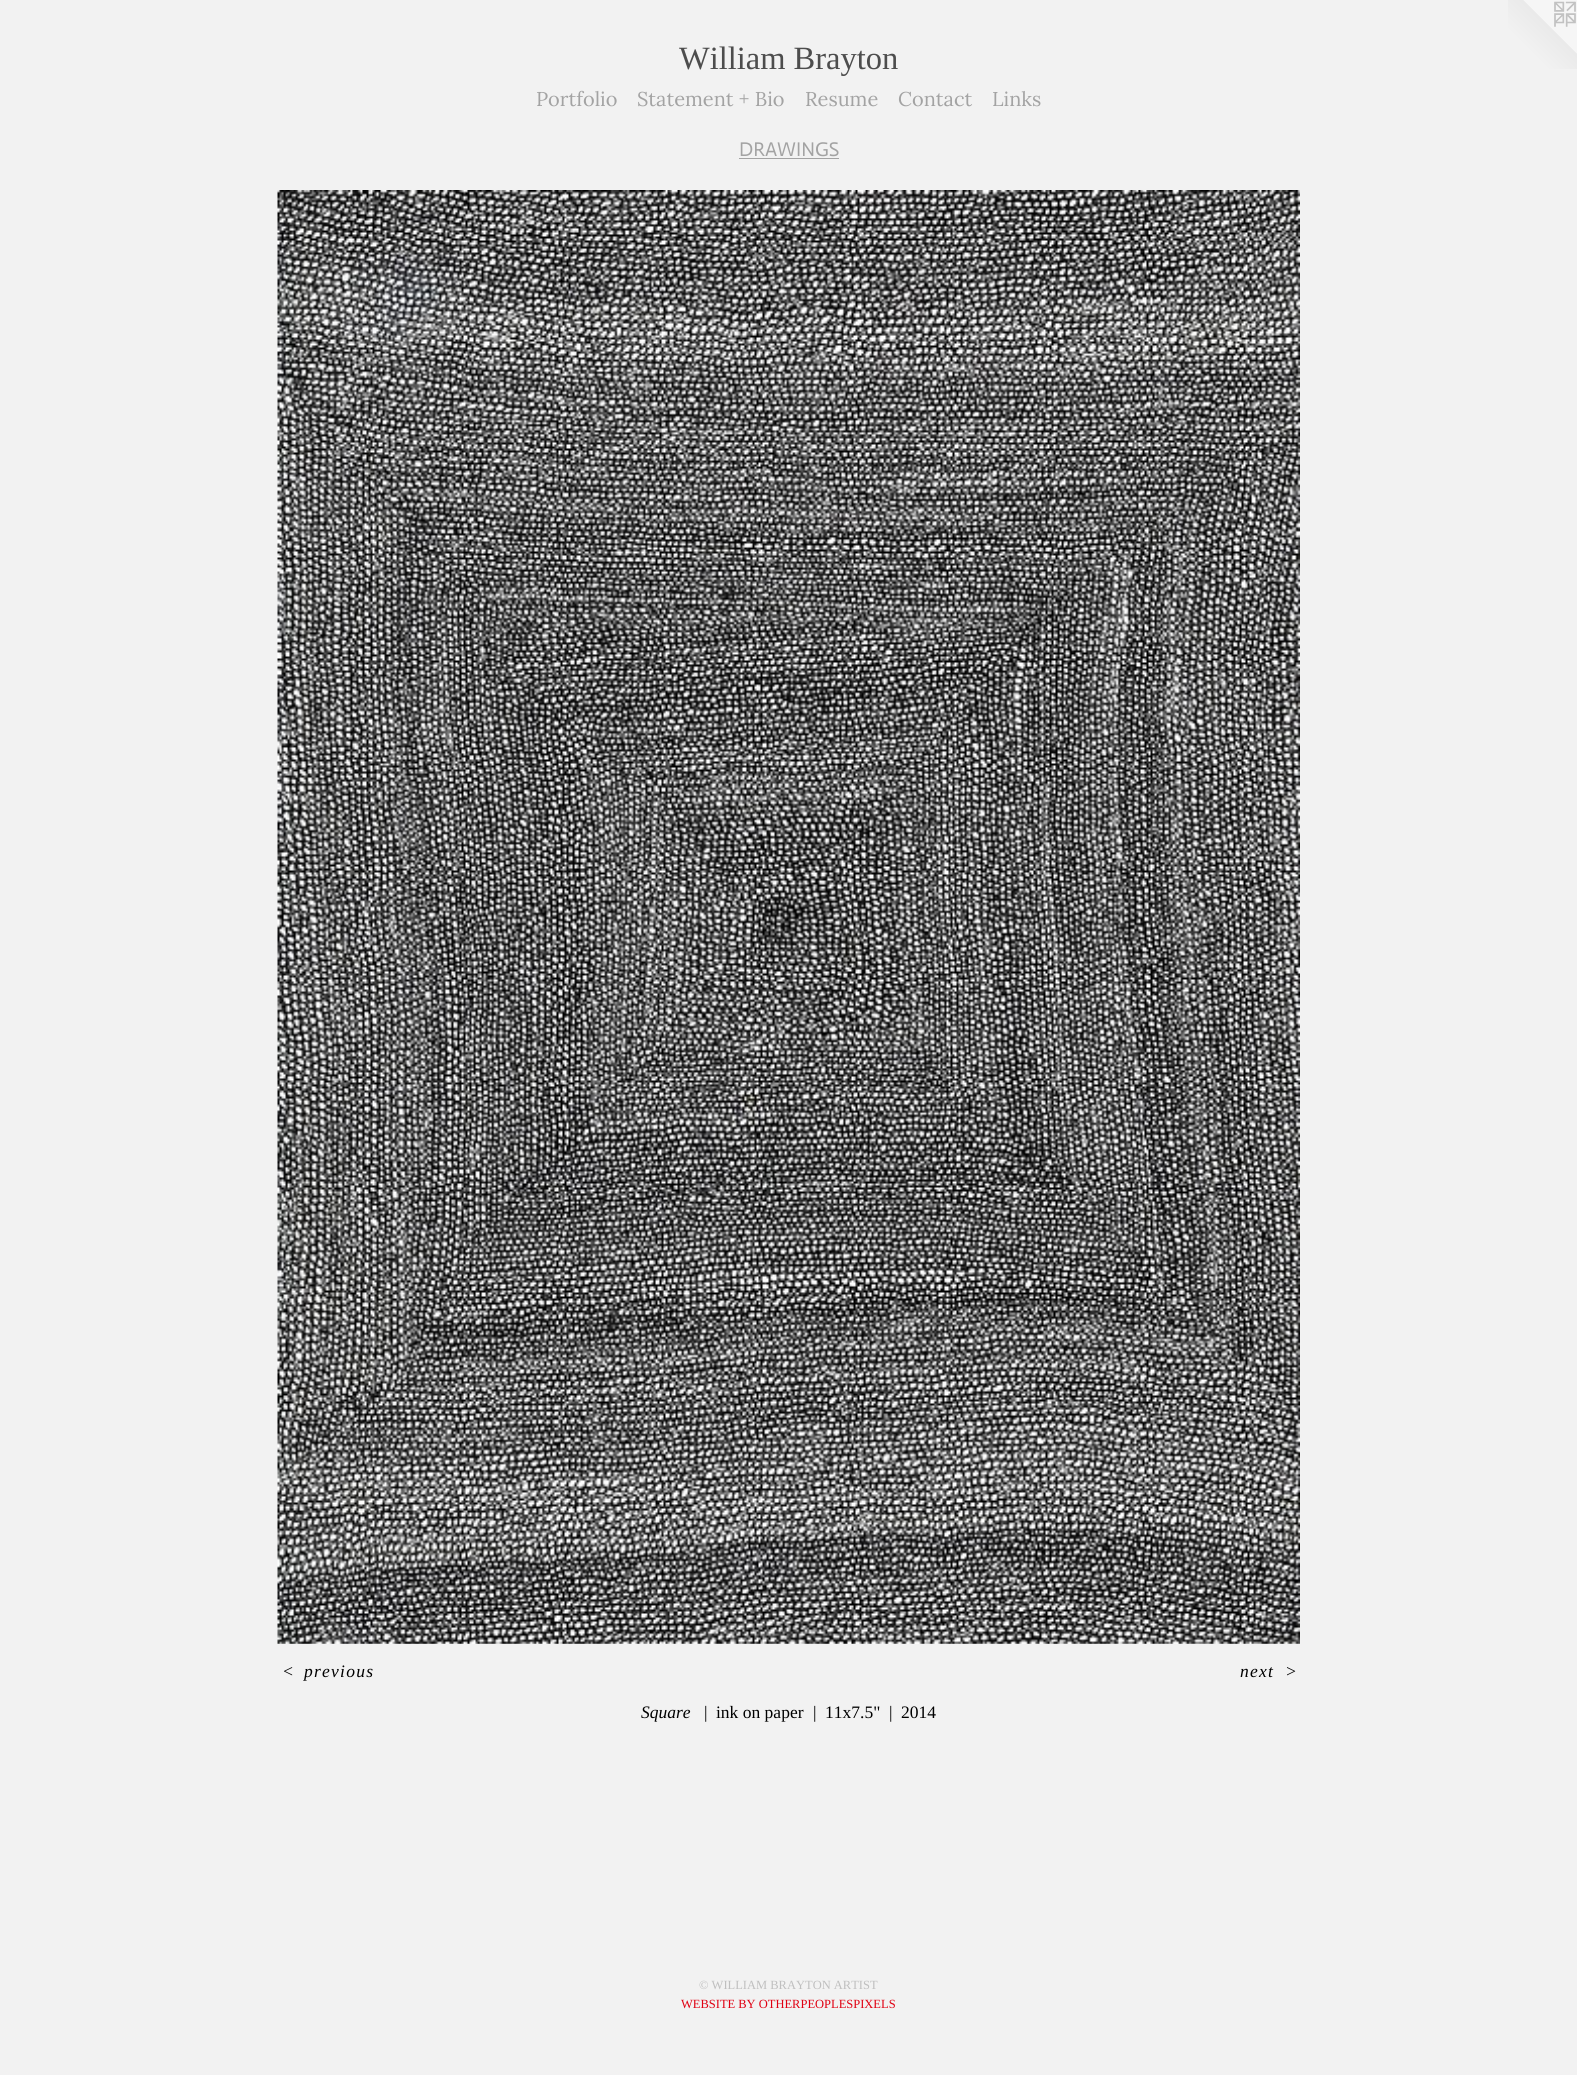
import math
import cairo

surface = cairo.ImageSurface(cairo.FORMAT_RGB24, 1577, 2075)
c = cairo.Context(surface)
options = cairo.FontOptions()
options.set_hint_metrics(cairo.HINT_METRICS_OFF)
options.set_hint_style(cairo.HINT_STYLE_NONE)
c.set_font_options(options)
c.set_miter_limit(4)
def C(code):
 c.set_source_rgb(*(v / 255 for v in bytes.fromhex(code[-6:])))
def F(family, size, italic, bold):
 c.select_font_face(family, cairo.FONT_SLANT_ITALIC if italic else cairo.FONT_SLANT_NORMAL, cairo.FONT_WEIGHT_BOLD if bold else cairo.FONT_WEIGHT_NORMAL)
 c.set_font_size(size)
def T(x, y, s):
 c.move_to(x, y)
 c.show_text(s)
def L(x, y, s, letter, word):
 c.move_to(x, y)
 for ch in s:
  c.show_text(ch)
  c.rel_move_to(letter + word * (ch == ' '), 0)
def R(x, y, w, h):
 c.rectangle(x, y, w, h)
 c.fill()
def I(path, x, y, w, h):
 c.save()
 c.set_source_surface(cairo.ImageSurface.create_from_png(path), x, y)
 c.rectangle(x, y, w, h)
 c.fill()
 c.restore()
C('f2f2f2')
c.paint()
F('Liberation Serif',32.5,0,0)
C('4d4d4d')
T(679,69,'William Brayton')
I('1.png',1508,0,69,69)
F('Lora',20,0,0)
C('a3a3a3')
T(536,106,'Portfolio')
T(637,106,'Statement + Bio')
T(805,106,'Resume')
T(898,106,'Contact')
T(992,106,'Links')
F('Actor',20,0,0)
T(739,156,'DRAWINGS')
R(739,158,100,1)
I('2.png',277,190,1023,1454)
F('Liberation Serif',17.5,1,0)
C('000000')
L(282,1677,'<',1.25,0)
L(304,1677,'previous',1.25,0)
L(1240,1677,'next',1.25,0)
L(1285,1677,'>',1.25,0)
T(641,1718,'Square')
F('Liberation Serif',17.5,0,0)
T(704,1718,'|')
T(716,1718,'ink on paper')
T(813,1718,'|')
T(825,1718,'11x7.5"')
T(889,1718,'|')
T(901,1718,'2014')
F('Liberation Serif',12.5,0,0)
C('bfbfbf')
T(699,1989,'© WILLIAM BRAYTON ARTIST')
C('e00012')
T(681,2008,'WEBSITE BY OTHERPEOPLESPIXELS')
surface.write_to_png('o.png')
